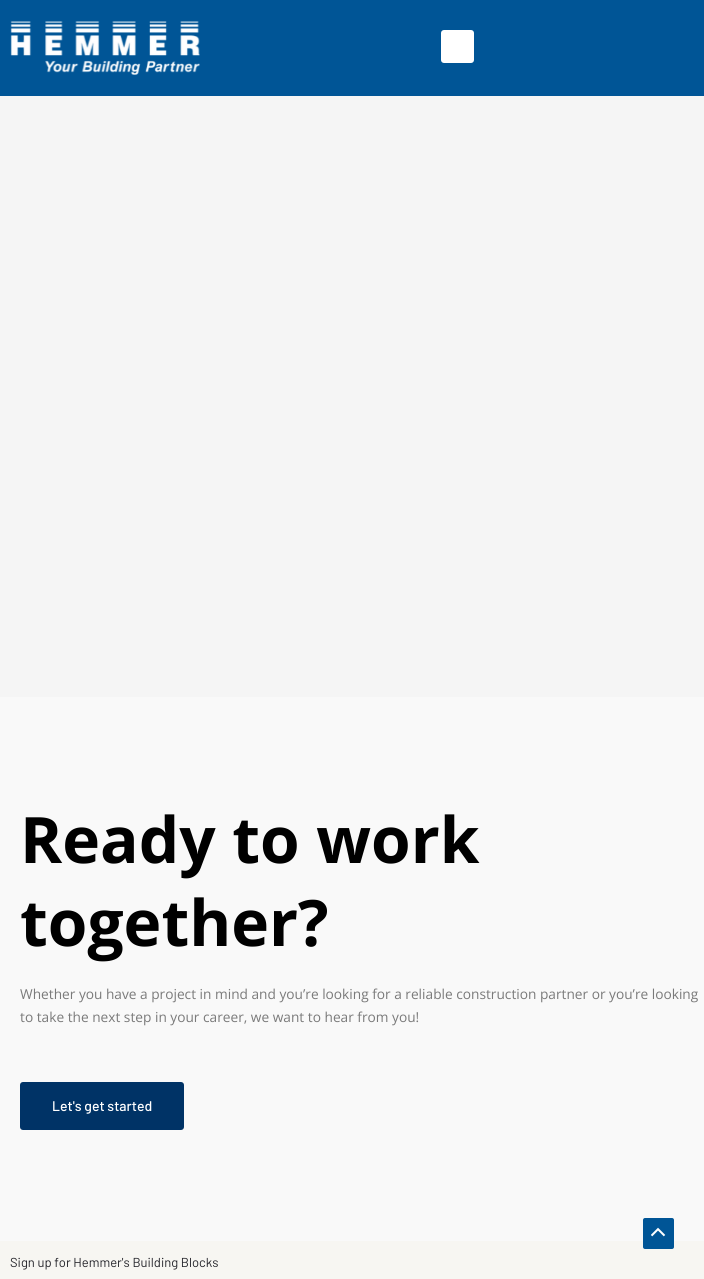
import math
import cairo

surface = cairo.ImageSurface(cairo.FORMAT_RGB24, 704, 1279)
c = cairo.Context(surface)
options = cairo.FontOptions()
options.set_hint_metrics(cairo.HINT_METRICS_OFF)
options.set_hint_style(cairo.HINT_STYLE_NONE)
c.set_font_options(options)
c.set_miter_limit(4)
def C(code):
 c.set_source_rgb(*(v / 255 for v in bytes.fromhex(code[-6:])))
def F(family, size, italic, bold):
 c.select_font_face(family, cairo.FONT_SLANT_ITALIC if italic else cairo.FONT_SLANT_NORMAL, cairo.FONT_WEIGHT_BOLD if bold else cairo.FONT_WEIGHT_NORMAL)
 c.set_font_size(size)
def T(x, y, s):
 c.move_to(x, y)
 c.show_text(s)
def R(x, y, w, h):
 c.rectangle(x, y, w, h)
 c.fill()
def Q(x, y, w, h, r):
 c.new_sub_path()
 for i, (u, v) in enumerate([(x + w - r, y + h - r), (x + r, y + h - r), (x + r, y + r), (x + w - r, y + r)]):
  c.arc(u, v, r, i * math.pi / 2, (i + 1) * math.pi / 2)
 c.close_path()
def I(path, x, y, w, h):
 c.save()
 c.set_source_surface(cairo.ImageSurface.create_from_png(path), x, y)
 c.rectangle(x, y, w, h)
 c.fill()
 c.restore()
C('f5f5f5')
c.paint()
C('005596')
R(0,0,704,96)
I('1.png',10,21,190,54)
C('ffffff')
Q(441,30,33,33,3)
c.fill()
C('f9f9f9')
R(0,697,704,544)
F('Open Sans',64,0,1)
C('000000')
T(20,863,'Ready to work')
T(20,946,'together?')
F('Open Sans',13.7,0,0)
C('7a7a7a')
T(20,999,'Whether you have a project in mind and you’re looking for a reliable construction partner or you’re looking')
T(20,1022,'to take the next step in your career, we want to hear from you!')
C('003366')
Q(21,1083,162,46,2)
c.fill_preserve()
c.stroke()
F('Barlow Medium',14,0,0)
C('ffffff')
T(52,1111,'Let\'s get started')
C('f7f6f2')
R(0,1241,704,38)
F('Barlow',13,0,0)
C('26262c')
T(10,1267,'Sign up for Hemmer\'s Building Blocks')
C('005596')
Q(643,1218,31,31,2)
c.fill()
I('2.png',651,1227,15,10)
surface.write_to_png('o.png')
